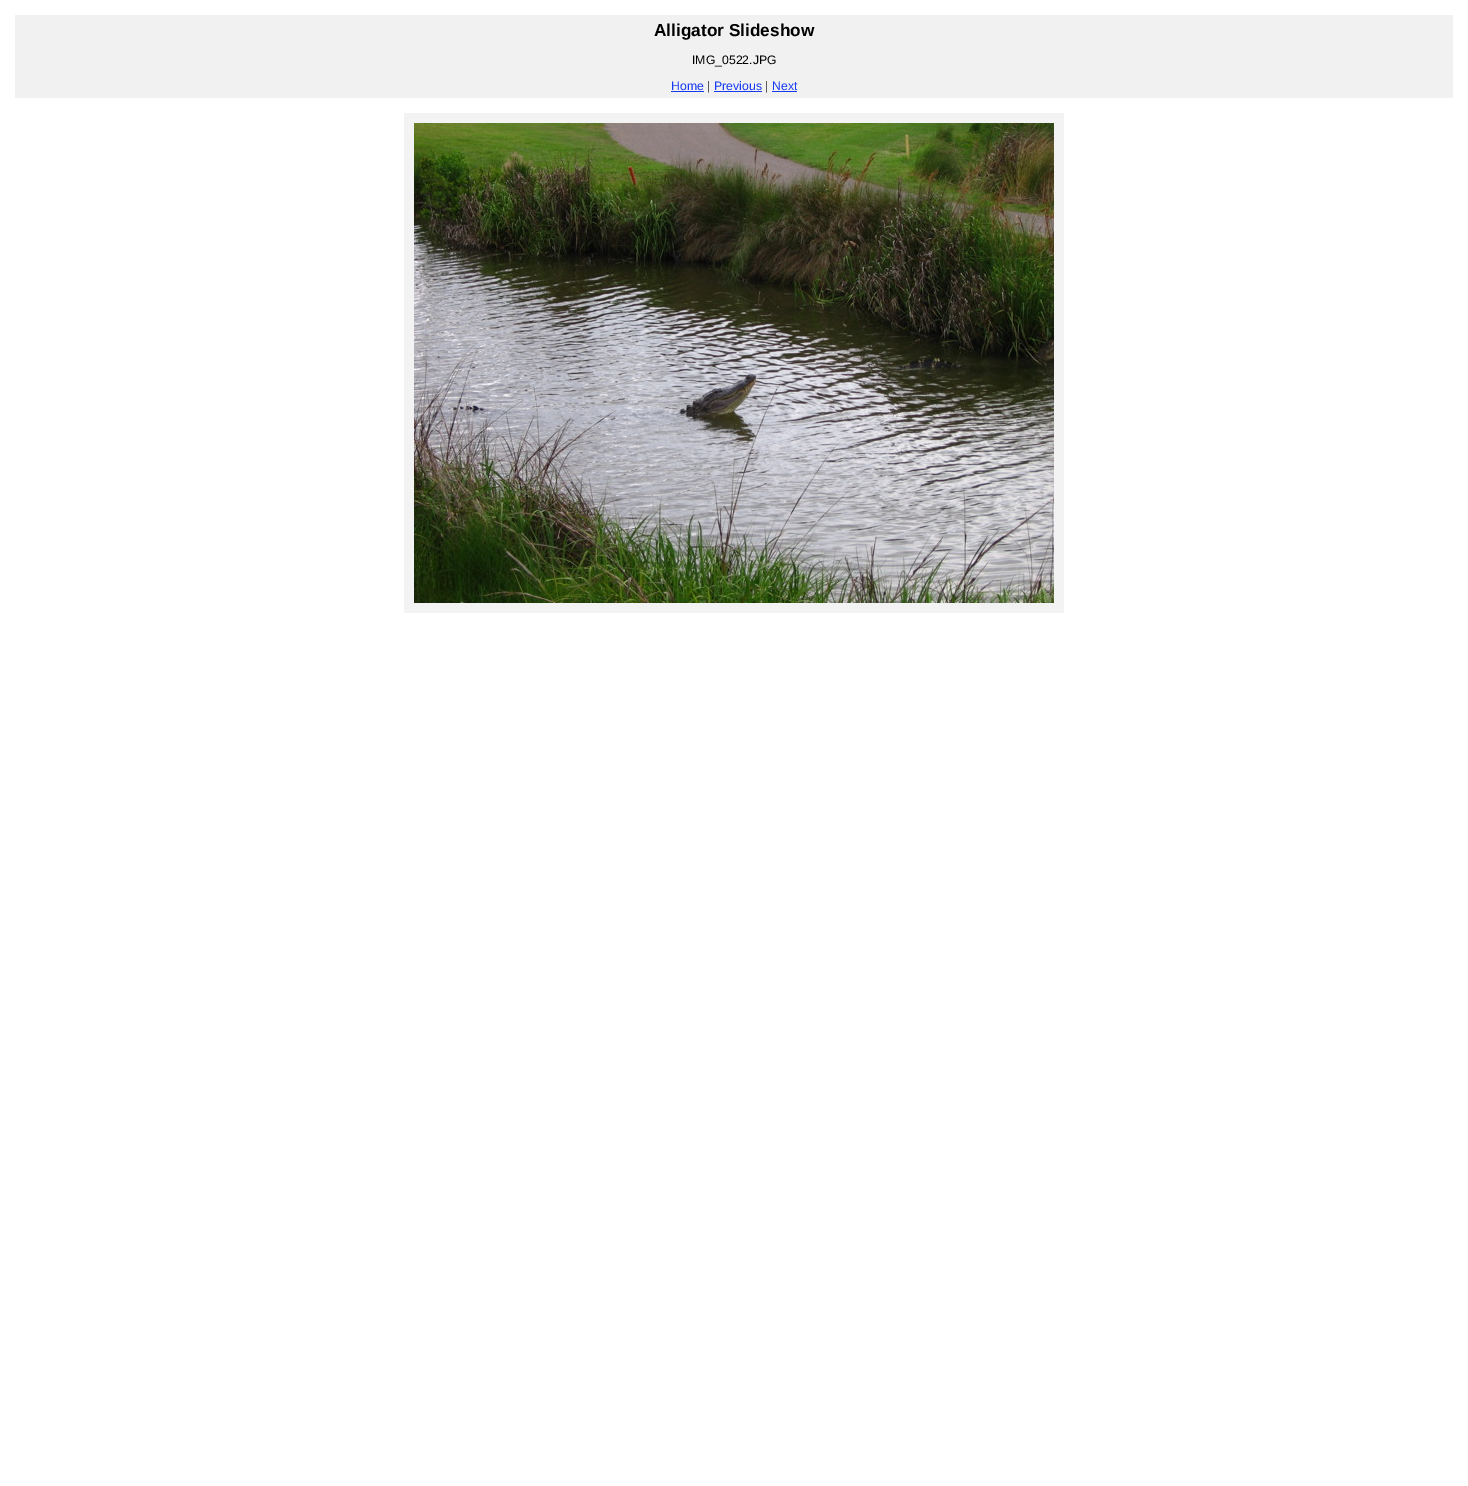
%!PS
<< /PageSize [1468 1486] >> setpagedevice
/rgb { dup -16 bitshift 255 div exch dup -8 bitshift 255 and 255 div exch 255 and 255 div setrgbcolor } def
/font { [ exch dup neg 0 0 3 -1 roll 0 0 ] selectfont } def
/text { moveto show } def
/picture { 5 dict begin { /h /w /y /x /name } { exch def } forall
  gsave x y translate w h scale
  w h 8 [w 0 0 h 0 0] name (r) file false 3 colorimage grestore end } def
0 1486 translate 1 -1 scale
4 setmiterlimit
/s1 { /LiberationSans-Bold 17.25 font 16#000000 rgb } def
/s2 { /LiberationSans-Regular 12.25 font 16#000000 rgb } def
/s3 { /LiberationSans-Regular 12.25 font 16#163AF1 rgb } def
/s4 { /LiberationSans-Regular 12.25 font 16#5B5B5B rgb } def
16#FFFFFF rgb
0 0 1468 1486 rectfill
16#F1F1F1 rgb
15 15 1438 83 rectfill
s1
(Alligator Slideshow) 654 36 text
s2
(IMG_0522.JPG) 692 64 text
s3
(Home) 671 90 text
671 91 33 1 rectfill
s4
(|) 707 90 text
s3
(Previous) 714 90 text
714 91 48 1 rectfill
s4
(|) 765 90 text
s3
(Next) 772 90 text
772 91 25 1 rectfill
16#F3F3F3 rgb
404 113 660 500 rectfill
(pic1.raw) 414 123 640 480 picture
showpage
